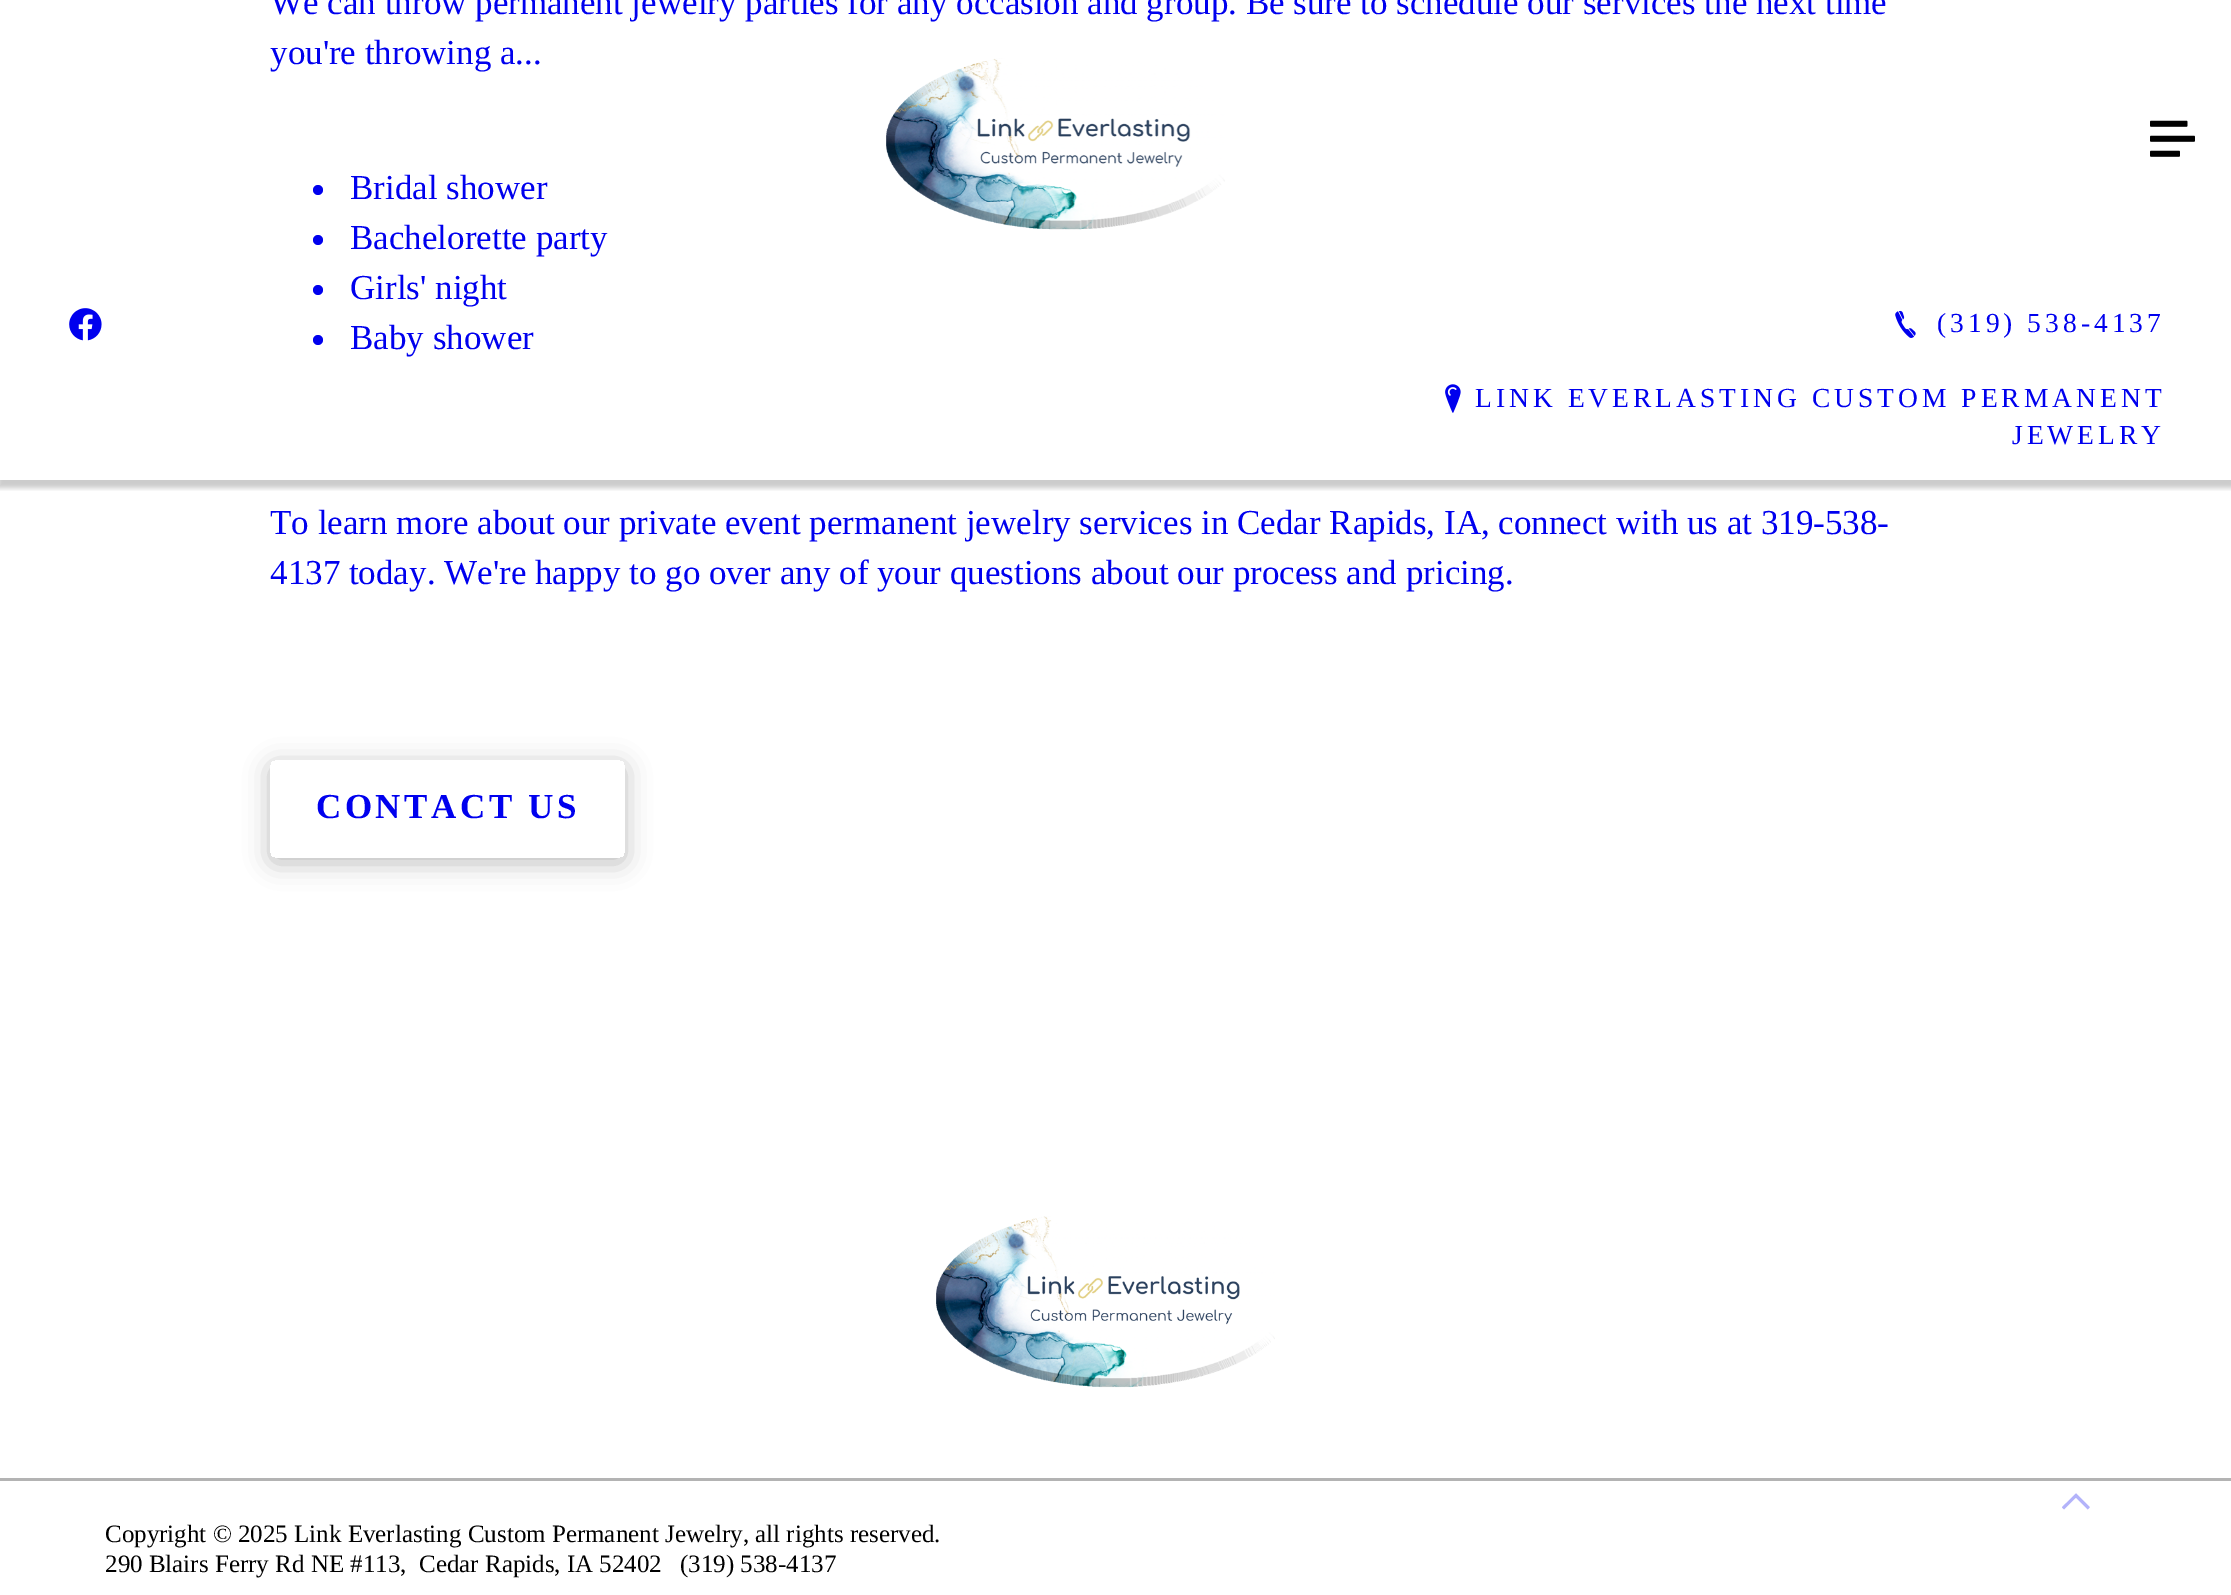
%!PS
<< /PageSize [2231 1595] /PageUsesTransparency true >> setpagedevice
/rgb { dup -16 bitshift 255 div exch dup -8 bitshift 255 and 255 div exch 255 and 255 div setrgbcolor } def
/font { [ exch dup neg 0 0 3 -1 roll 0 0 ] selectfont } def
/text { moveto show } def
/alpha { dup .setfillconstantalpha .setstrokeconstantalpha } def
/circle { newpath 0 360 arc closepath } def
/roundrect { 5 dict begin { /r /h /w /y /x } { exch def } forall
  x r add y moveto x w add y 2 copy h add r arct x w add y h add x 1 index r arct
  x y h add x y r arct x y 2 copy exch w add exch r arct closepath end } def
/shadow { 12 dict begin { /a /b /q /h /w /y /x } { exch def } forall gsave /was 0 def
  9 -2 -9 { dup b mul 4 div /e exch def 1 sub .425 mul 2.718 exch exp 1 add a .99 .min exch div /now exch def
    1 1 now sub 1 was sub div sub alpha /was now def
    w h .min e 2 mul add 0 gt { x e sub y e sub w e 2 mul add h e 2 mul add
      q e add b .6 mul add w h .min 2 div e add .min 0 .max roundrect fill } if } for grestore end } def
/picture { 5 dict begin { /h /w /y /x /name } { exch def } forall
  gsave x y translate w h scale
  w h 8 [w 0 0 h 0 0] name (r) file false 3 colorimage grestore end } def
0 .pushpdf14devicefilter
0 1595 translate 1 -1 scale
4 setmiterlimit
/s1 { /LiberationSerif-Regular 35 font 16#0000EE rgb } def
/s2 { /LiberationSerif-Regular 25 font 16#000000 rgb } def
/s3 { /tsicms-Regular 36 font 16#B3B3FA rgb } def
16#FFFFFF rgb
0 0 2231 1595 rectfill
s1
(We can throw permanent jewelry parties for any occasion and group. Be sure to schedule our services the next time) 270 14 text
(you're throwing a...) 270 64 text
318 190 5 circle fill
(Bridal shower) 350 199 text
318 240 5 circle fill
(Bachelorette party) 350 249 text
318 290 5 circle fill
(Girls' night) 350 299 text
318 340 5 circle fill
(Baby shower) 350 349 text
(To learn more about our private event permanent jewelry services in Cedar Rapids, IA, connect with us at 319-538-) 270 534 text
(4137 today. We're happy to go over any of your questions about our process and pricing.) 270 584 text
gsave
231 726 moveto 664 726 lineto 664 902 lineto 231 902 lineto closepath 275 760 moveto 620 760 lineto 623 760 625 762 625 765 curveto 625 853 lineto 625 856 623 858 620 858 curveto 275 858 lineto 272 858 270 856 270 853 curveto 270 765 lineto 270 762 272 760 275 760 curveto closepath eoclip newpath
16#000000 rgb
270 765 355 98 5 12.5 0.25 shadow
grestore
/LiberationSerif-Bold 35 font
316 818 moveto 3.5 0 (CONTACT US) ashow
(pic1.raw) 886 58 339 172 picture
(pic2.raw) 2150 120 45 37 picture
gsave
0 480 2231 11 rectclip
16#000000 rgb
-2 283 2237 205 0 2.5 0.2 shadow
grestore
(pic3.raw) 69 308 33 33 picture
(pic4.raw) 1895 310 21 28 picture
/LiberationSerif-Regular 27.5 font
1937 332 moveto 4 0 (\(319\) 538-4137) ashow
(pic5.raw) 1445 384 16 29 picture
1475 407 moveto 4 0 (LINK EVERLASTING CUSTOM PERMANENT) ashow
2012 444 moveto 4 0 (JEWELRY) ashow
(pic6.raw) 936 1216 339 172 picture
16#B3B3B3 rgb
0 1478 2231 3 rectfill
s2
(Copyright © 2025 Link Everlasting Custom Permanent Jewelry, all rights reserved.) 105 1542 text
(290 Blairs Ferry Rd NE #113,) 105 1572 text
(Cedar Rapids, IA 52402) 419 1572 text
(\(319\) 538-4137) 680 1572 text
s3
(+) 2062 1516 text
.poppdf14devicefilter showpage
